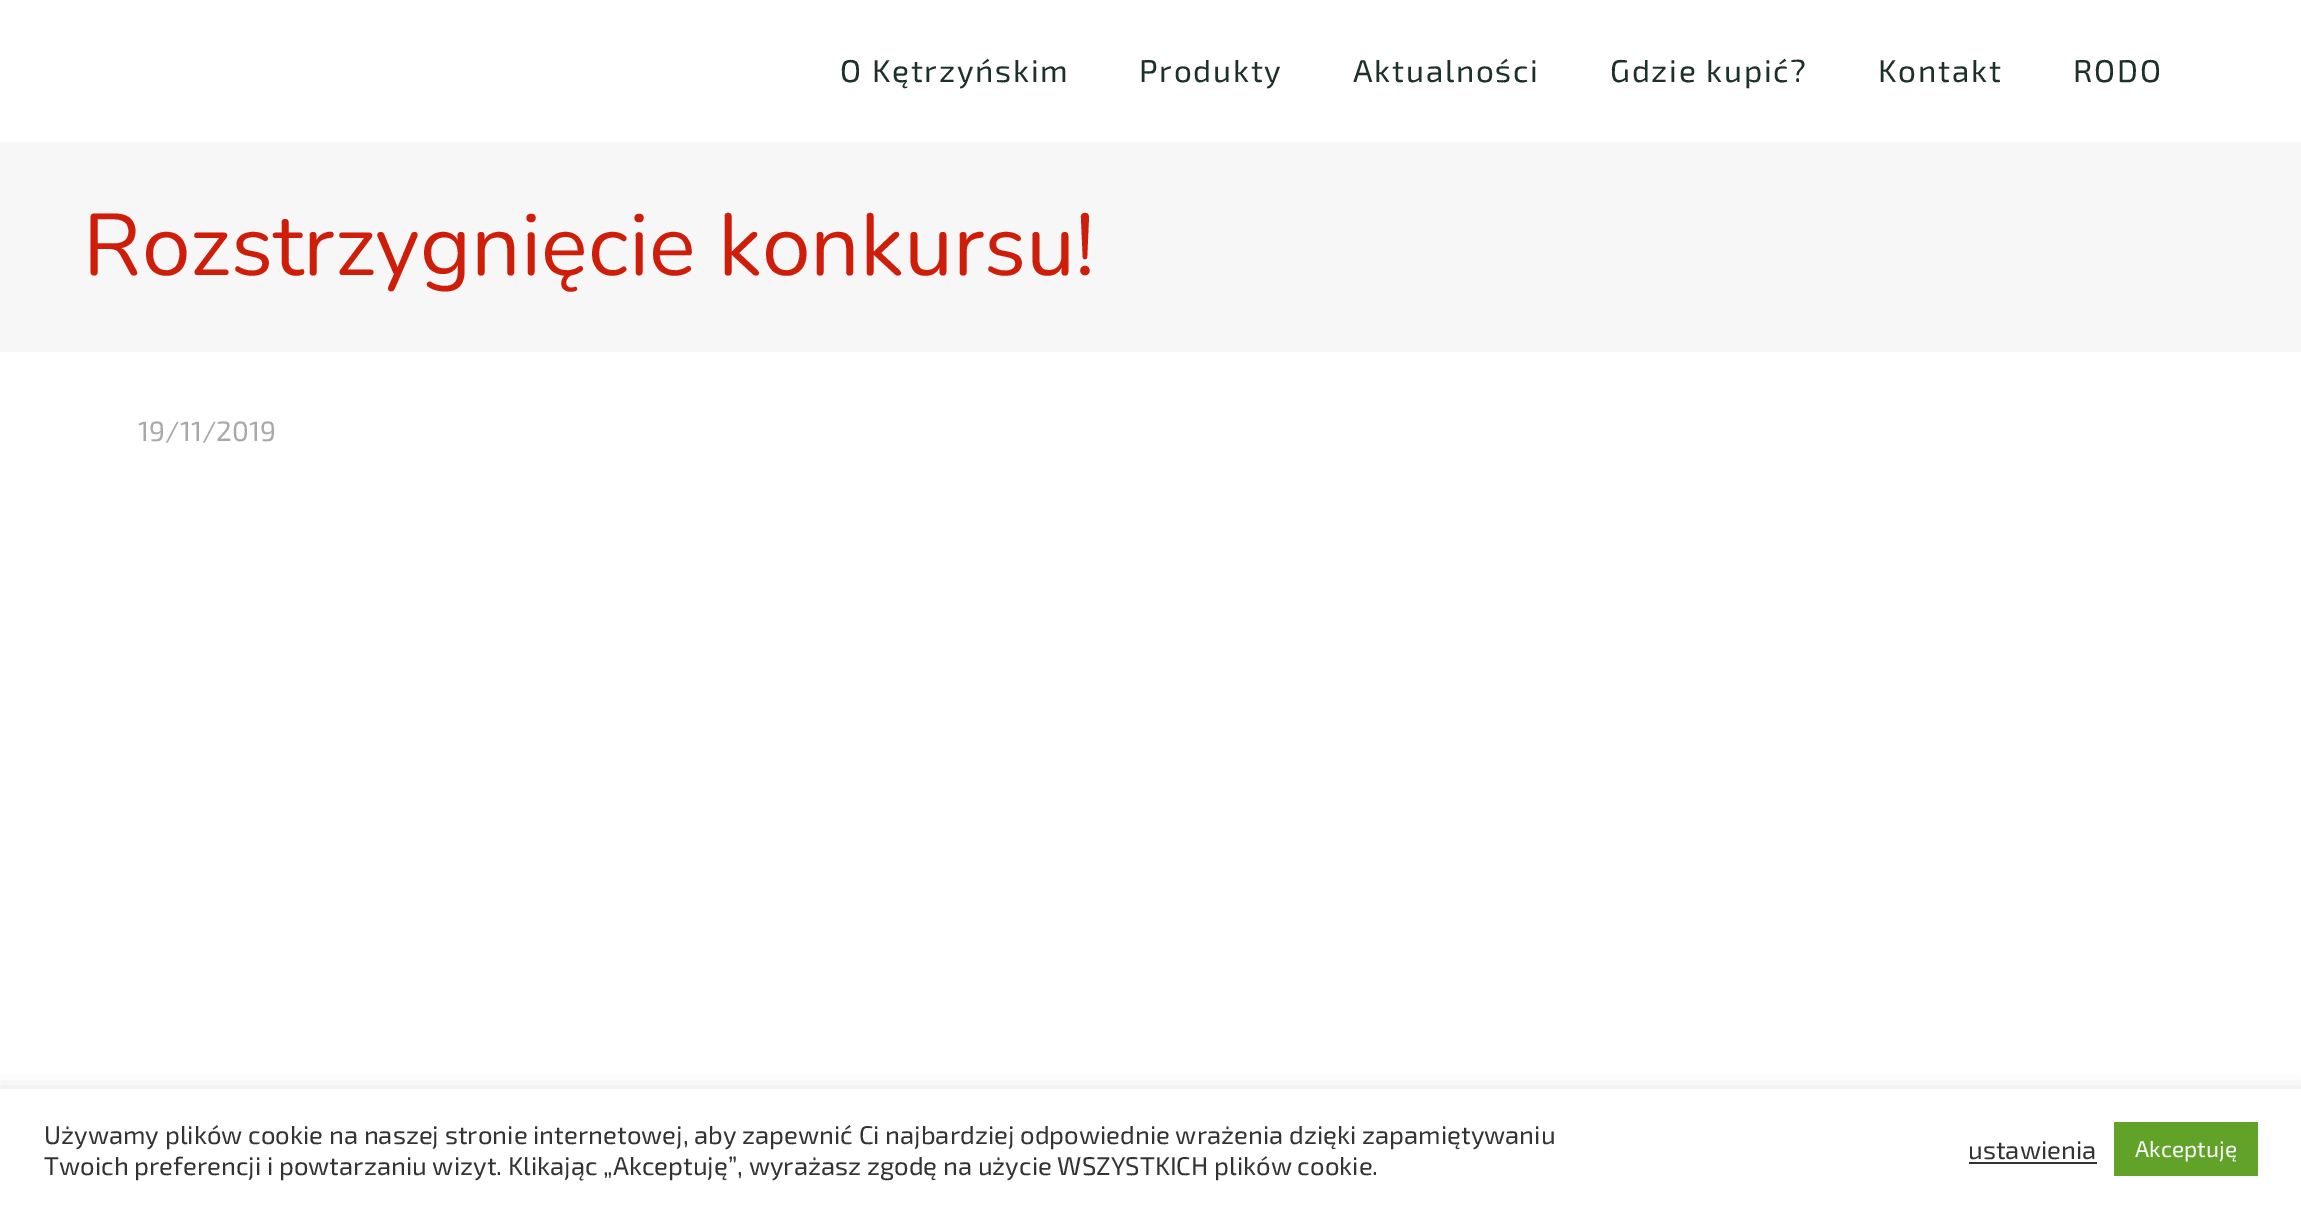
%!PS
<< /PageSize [2301 1208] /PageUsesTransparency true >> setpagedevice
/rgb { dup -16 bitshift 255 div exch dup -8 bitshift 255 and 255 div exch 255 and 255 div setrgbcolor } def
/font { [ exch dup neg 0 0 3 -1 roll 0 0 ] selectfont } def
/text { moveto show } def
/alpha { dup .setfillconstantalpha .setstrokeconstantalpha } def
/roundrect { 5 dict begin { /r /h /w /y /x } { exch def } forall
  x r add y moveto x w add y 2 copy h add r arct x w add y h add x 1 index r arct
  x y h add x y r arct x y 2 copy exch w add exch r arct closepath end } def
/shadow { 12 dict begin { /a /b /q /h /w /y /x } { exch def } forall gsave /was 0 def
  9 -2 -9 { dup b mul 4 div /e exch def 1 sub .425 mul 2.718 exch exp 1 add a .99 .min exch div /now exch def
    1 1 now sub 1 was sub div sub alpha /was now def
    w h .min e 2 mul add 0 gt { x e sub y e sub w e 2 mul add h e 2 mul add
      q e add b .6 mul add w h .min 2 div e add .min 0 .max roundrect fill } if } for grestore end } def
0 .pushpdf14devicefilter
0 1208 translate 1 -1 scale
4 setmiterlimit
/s1 { /Nunito-Regular 87.5 font 16#CE1D09 rgb } def
/s2 { /Exo2-Regular 28 font 16#A8A8A8 rgb } def
/s3 { /Exo2-Regular 25.67 font 16#333333 rgb } def
/s4 { /Exo2-Regular 22.75 font 16#FFFFFF rgb } def
16#FFFFFF rgb
0 0 2301 1208 rectfill
/Exo2-Regular 31.5 font
16#1E302B rgb
840 82 moveto 1.75 0 (O Kętrzyńskim) ashow
1139 82 moveto 1.75 0 (Produkty) ashow
1353 82 moveto 1.75 0 (Aktualności) ashow
1610 82 moveto 1.75 0 (Gdzie kupić?) ashow
1878 82 moveto 1.75 0 (Kontakt) ashow
2073 82 moveto 1.75 0 (RODO) ashow
16#F7F7F7 rgb
0 142 2301 210 rectfill
s1
(Rozstrzygnięcie konkursu!) 83 275 text
s2
(19/11/2019) 138 441 text
gsave
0 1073 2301 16 rectclip
16#ACABAB rgb
0 1087 2301 121 0 9 0.3 shadow
grestore
s3
(Używamy plików cookie na naszej stronie internetowej, aby zapewnić Ci najbardziej odpowiednie wrażenia dzięki zapamiętywaniu) 44 1144 text
(Twoich preferencji i powtarzaniu wizyt. Klikając „Akceptuję”, wyrażasz zgodę na użycie WSZYSTKICH plików cookie.) 44 1175 text
(ustawienia) 1968 1159 text
1969 1162 128 2 rectfill
16#61A229 rgb
2114 1122 144 54 rectfill
s4
(Akceptuję) 2135 1157 text
.poppdf14devicefilter showpage
